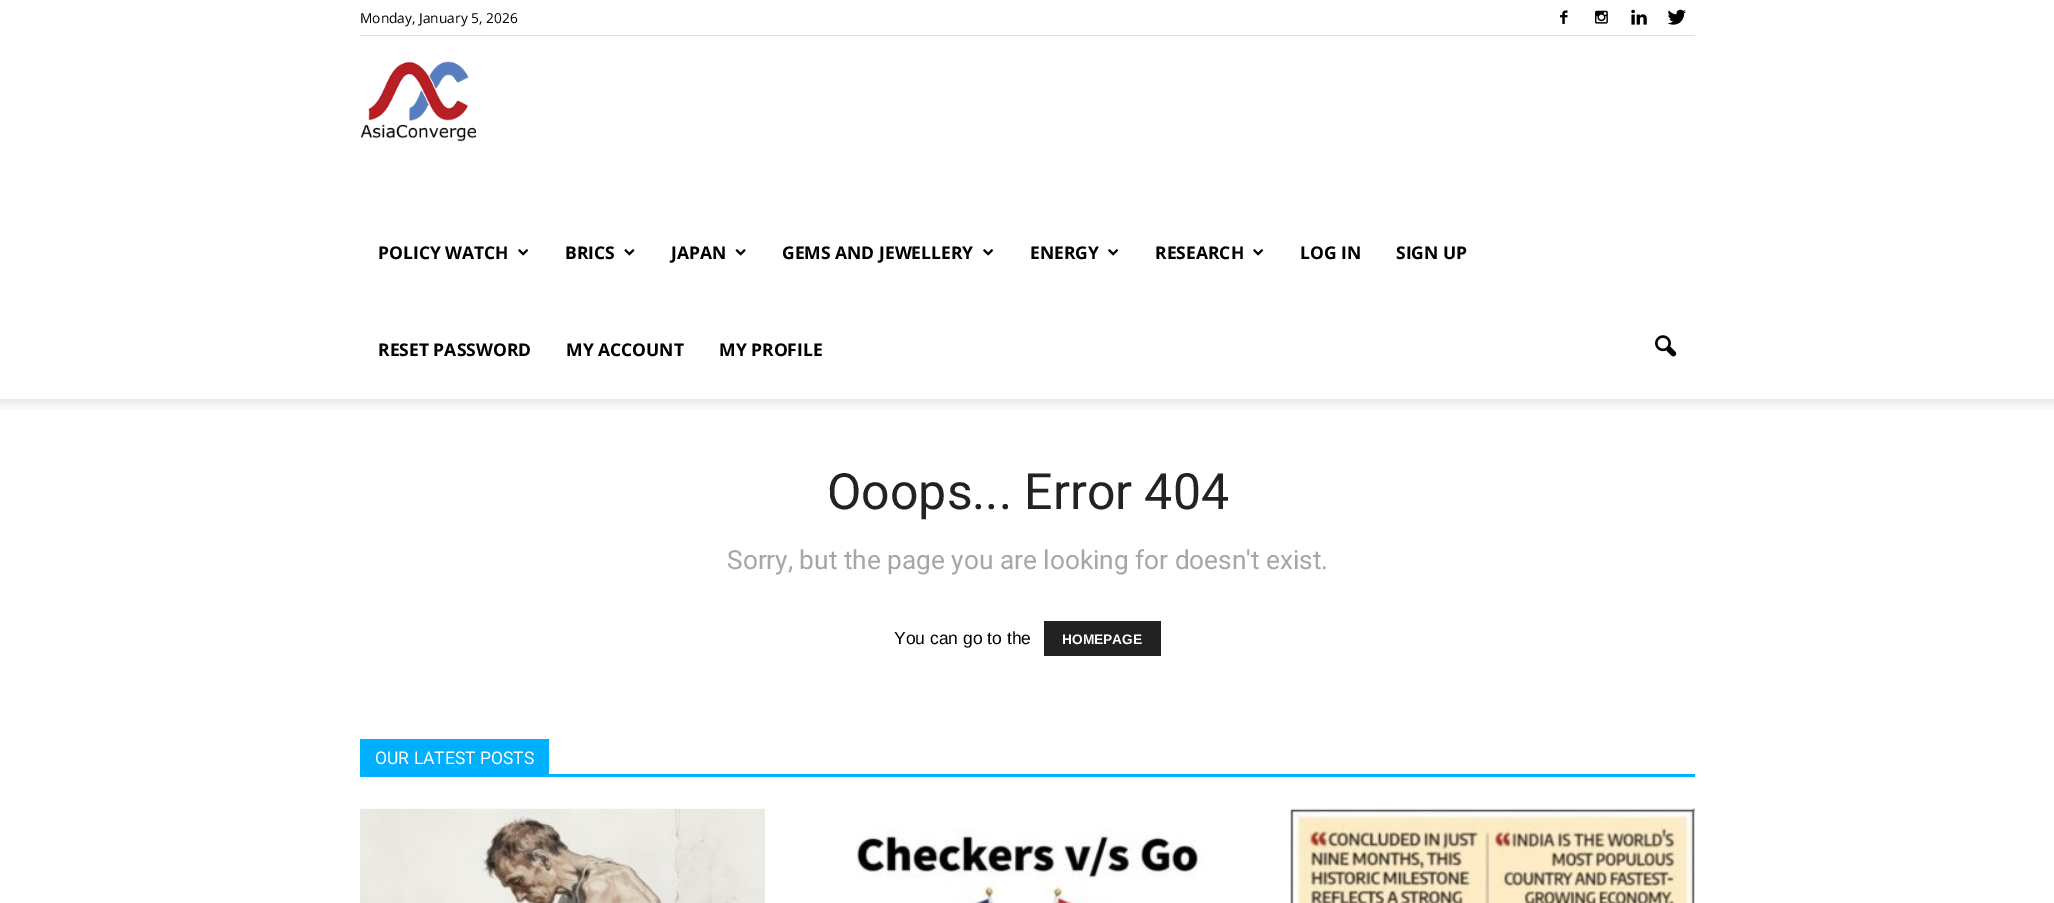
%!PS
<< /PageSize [2054 903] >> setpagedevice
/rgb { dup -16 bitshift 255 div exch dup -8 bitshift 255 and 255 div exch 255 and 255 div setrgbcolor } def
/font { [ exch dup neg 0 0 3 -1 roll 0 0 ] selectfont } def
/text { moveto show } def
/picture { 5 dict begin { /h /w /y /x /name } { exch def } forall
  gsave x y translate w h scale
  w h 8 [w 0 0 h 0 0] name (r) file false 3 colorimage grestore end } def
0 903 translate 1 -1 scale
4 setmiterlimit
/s1 { /OpenSans-Regular 13.75 font 16#000000 rgb } def
/s2 { /OpenSans-Bold 17.5 font 16#000000 rgb } def
/s3 { /Roboto-Regular 50 font 16#222222 rgb } def
/s4 { /Roboto-Regular 26.25 font 16#A6A6A6 rgb } def
/s5 { /LiberationSans-Regular 17.5 font 16#000000 rgb } def
/s6 { /LiberationSans-Bold 13.75 font 16#FFFFFF rgb } def
/s7 { /Roboto-Regular 17.5 font 16#FFFFFF rgb } def
16#FFFFFF rgb
0 0 2054 903 rectfill
16#E0E0E0 rgb
360 35 1335 1 rectfill
s1
(Monday, January 5, 2026) 360 23 text
(pic1.raw) 1560 10 8 14 picture
(pic2.raw) 1595 10 13 14 picture
(pic3.raw) 1631 9 16 16 picture
(pic4.raw) 1667 9 19 16 picture
(pic5.raw) 360 61 116 81 picture
s2
(POLICY WATCH) 378 259 text
(pic6.raw) 518 249 11 7 picture
(BRICS) 565 259 text
(pic7.raw) 624 249 11 7 picture
(JAPAN) 671 259 text
(pic8.raw) 735 249 11 7 picture
(GEMS AND JEWELLERY) 782 259 text
(pic6.raw) 983 249 11 7 picture
(ENERGY) 1030 259 text
(pic6.raw) 1108 249 11 7 picture
(RESEARCH) 1155 259 text
(pic6.raw) 1253 249 11 7 picture
(LOG IN) 1300 259 text
(SIGN UP) 1396 259 text
(RESET PASSWORD) 378 356 text
(MY ACCOUNT) 566 356 text
(MY PROFILE) 719 356 text
(pic9.raw) 1655 335 22 22 picture
(pic10.raw) 0 399 2054 10 picture
s3
(Ooops... Error 404) 827 509 text
s4
(Sorry, but the page you are looking for doesn't exist.) 727 569 text
s5
(You can go to the) 894 644 text
16#222222 rgb
1044 621 117 35 rectfill
s6
(HOMEPAGE) 1062 644 text
16#00B0FF rgb
360 774 1335 3 rectfill
360 739 189 35 rectfill
s7
(OUR LATEST POSTS) 375 764 text
(pic11.raw) 360 808 405 95 picture
(pic12.raw) 855 829 349 74 picture
(pic13.raw) 1290 808 405 95 picture
showpage
